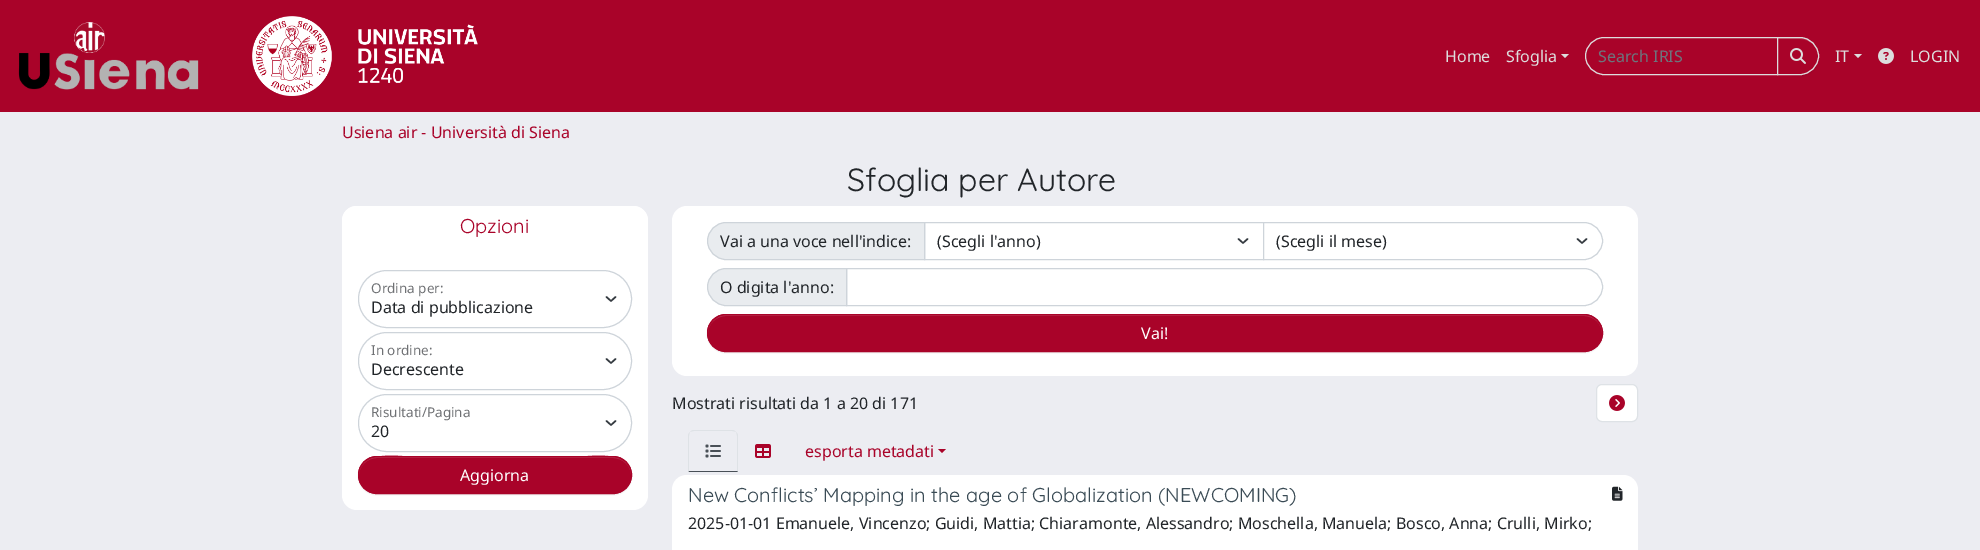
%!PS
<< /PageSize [1980 550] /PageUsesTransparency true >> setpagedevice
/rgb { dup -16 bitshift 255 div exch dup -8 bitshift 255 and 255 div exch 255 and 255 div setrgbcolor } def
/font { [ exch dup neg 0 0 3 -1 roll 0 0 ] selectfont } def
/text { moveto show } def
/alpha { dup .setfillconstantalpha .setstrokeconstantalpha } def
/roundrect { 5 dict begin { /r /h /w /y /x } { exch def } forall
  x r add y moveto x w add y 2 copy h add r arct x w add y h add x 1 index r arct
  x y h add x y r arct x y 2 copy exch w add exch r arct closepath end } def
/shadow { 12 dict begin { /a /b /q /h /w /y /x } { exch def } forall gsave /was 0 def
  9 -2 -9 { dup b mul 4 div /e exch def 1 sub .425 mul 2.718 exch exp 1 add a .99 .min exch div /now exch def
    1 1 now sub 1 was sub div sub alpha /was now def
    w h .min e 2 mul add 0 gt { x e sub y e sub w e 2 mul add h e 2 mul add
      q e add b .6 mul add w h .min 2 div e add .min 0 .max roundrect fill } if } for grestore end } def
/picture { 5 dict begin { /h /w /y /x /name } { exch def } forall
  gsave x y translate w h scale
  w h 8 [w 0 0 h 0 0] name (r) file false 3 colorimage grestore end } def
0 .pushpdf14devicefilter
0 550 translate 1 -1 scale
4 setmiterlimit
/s1 { /NotoSans-Regular 16 font 16#DDDDDD rgb } def
/s2 { /NotoSans-Regular 16 font 16#6C757D rgb } def
/s3 { /NotoSans-Regular 16 font 16#A90329 rgb } def
/s4 { /Quicksand-Regular 32 font 16#212529 rgb } def
/s5 { /Quicksand-Regular 20 font 16#A90329 rgb } def
/s6 { /NotoSans-Regular 13.5 font 16#6F7174 rgb } def
/s7 { /NotoSans-Regular 16 font 16#212529 rgb } def
/s8 { /NotoSans-Regular 16 font 16#FFFFFF rgb } def
/s9 { /Quicksand-Regular 20 font 16#3A4B55 rgb } def
16#ECEDF2 rgb
0 0 1980 550 rectfill
16#A90329 rgb
0 0 1980 112 rectfill
(pic1.raw) 18 22 181 68 picture
(pic2.raw) 252 16 226 80 picture
s1
(Home) 1445 62 text
(Sfoglia) 1506 62 text
1561 54 moveto 1569 54 lineto 1565 58 lineto closepath fill
1604 37.5 moveto 1777.5 37.5 lineto 1777.5 74.5 lineto 1604 74.5 lineto 1594 74.5 1585.5 66 1585.5 56 curveto 1585.5 46 1594 37.5 1604 37.5 curveto closepath stroke
s2
(Search IRIS) 1598 62 text
16#000000 rgb
1777 38 42 38 19 0.5 0.07 shadow
16#A90329 rgb
1777 37 moveto 1800 37 lineto 1810.5 37 1819 45.5 1819 56 curveto 1819 66.5 1810.5 75 1800 75 curveto 1777 75 lineto closepath fill
16#B62949 rgb
1778 39 moveto 1800 39 lineto 1810 39 1818 47 1818 56 curveto 1818 48 1812 40 1804 38 curveto 1778 38 lineto closepath fill
16#DDDDDD rgb
1777.5 37.5 moveto 1800 37.5 lineto 1810 37.5 1818.5 46 1818.5 56 curveto 1818.5 66 1810 74.5 1800 74.5 curveto 1777.5 74.5 lineto closepath stroke
(pic3.raw) 1790 48 16 16 picture
(IT) 1835 62 text
1854 54 moveto 1862 54 lineto 1858 58 lineto closepath fill
(pic4.raw) 1878 48 16 16 picture
(LOGIN) 1910 62 text
s3
(Usiena air - Università di Siena) 342 138 text
s4
(Sfoglia per Autore) 847 191 text
16#FFFFFF rgb
342 206 306 304 15 roundrect fill
357 206 moveto 633 206 lineto 641.5 206 648 212.5 648 221 curveto 648 254 lineto 342 254 lineto 342 221 lineto 342 212.5 348.5 206 357 206 curveto closepath fill
s5
(Opzioni) 460 233 text
16#343A40 rgb
1.5 setlinewidth
1 setlinecap
1 setlinejoin
606.5 297 moveto 611 301 lineto 615.5 297 lineto stroke
16#CED4DA rgb
1 setlinewidth
0 setlinecap
0 setlinejoin
358.5 270.5 273 57 28.5 roundrect stroke
s6
(Ordina per:) 371 293 text
s7
(Data di pubblicazione) 371 313 text
16#343A40 rgb
1.5 setlinewidth
1 setlinecap
1 setlinejoin
606.5 359 moveto 611 363 lineto 615.5 359 lineto stroke
16#CED4DA rgb
1 setlinewidth
0 setlinecap
0 setlinejoin
358.5 332.5 273 57 28.5 roundrect stroke
s6
(In ordine:) 371 355 text
s7
(Decrescente) 371 375 text
16#343A40 rgb
1.5 setlinewidth
1 setlinecap
1 setlinejoin
606.5 421 moveto 611 425 lineto 615.5 421 lineto stroke
16#CED4DA rgb
1 setlinewidth
0 setlinecap
0 setlinejoin
358.5 394.5 273 57 28.5 roundrect stroke
s6
(Risultati/Pagina) 371 417 text
s7
(20) 371 437 text
16#000000 rgb
358 457 274 38 19 0.5 0.07 shadow
16#A90329 rgb
358 456 274 38 19 roundrect fill
16#B62949 rgb
377 458 moveto 613 458 lineto 623 458 631 466 631 475 curveto 632 448 585 457 574 457 curveto 416 457 lineto 405 457 358 448 359 475 curveto 359 466 367 458 377 458 curveto closepath fill
16#A90329 rgb
358.5 456.5 273 37 18.5 roundrect stroke
s8
(Aggiorna) 460 481 text
672 206 966 170 15 roundrect fill
16#E9ECEF rgb
726 222.5 moveto 924.5 222.5 lineto 924.5 259.5 lineto 726 259.5 lineto 716 259.5 707.5 251 707.5 241 curveto 707.5 231 716 222.5 726 222.5 curveto closepath gsave fill grestore
16#CED4DA rgb
stroke
s7
(Vai a una voce nell'indice:) 720 247 text
16#343A40 rgb
1.5 setlinewidth
1 setlinecap
1 setlinejoin
1238.5 239 moveto 1243 243 lineto 1247.5 239 lineto stroke
16#CED4DA rgb
1 setlinewidth
0 setlinecap
0 setlinejoin
924.5 222.5 339 37 rectstroke
s7
(\(Scegli l'anno\)) 937 247 text
16#FFFFFF rgb
1263 222 moveto 1584 222 lineto 1594.5 222 1603 230.5 1603 241 curveto 1603 251.5 1594.5 260 1584 260 curveto 1263 260 lineto closepath fill
16#343A40 rgb
1.5 setlinewidth
1 setlinecap
1 setlinejoin
1577.5 239 moveto 1582 243 lineto 1586.5 239 lineto stroke
16#CED4DA rgb
1 setlinewidth
0 setlinecap
0 setlinejoin
1263.5 222.5 moveto 1584 222.5 lineto 1594 222.5 1602.5 231 1602.5 241 curveto 1602.5 251 1594 259.5 1584 259.5 curveto 1263.5 259.5 lineto closepath stroke
s7
(\(Scegli il mese\)) 1276 247 text
16#E9ECEF rgb
726 268.5 moveto 846.5 268.5 lineto 846.5 305.5 lineto 726 305.5 lineto 716 305.5 707.5 297 707.5 287 curveto 707.5 277 716 268.5 726 268.5 curveto closepath gsave fill grestore
16#CED4DA rgb
stroke
s7
(O digita l'anno:) 720 293 text
16#CED4DA rgb
846.5 268.5 moveto 1584 268.5 lineto 1594 268.5 1602.5 277 1602.5 287 curveto 1602.5 297 1594 305.5 1584 305.5 curveto 846.5 305.5 lineto closepath stroke
16#000000 rgb
707 315 896 38 19 0.5 0.07 shadow
16#A90329 rgb
707 314 896 38 19 roundrect fill
16#B62949 rgb
726 316 moveto 1584 316 lineto 1594 316 1602 324 1602 333 curveto 1602 323 1594 315 1584 315 curveto 726 315 lineto 716 315 708 323 708 333 curveto 708 324 716 316 726 316 curveto closepath fill
16#A90329 rgb
707.5 314.5 895 37 18.5 roundrect stroke
s8
(Vai!) 1141 339 text
s7
(Mostrati risultati da 1 a 20 di 171) 672 409 text
16#FFFFFF rgb
1596.5 384.5 41 37 5.5 roundrect gsave fill grestore
16#DEE2E6 rgb
stroke
(pic5.raw) 1609 395 16 16 picture
694 430 moveto 692 430 691 431 690 432 curveto 691 432 692 431 694 431 curveto 732 431 lineto 734 431 735 432 736 432 curveto 735 431 734 430 732 430 curveto closepath 738 472 moveto 738 436 lineto 738 434 737 433 736 432 curveto 736 433 737 434 737 436 curveto 737 471 lineto closepath fill
16#495057 rgb
738 472 moveto 737 471 lineto 689 471 lineto 688 472 lineto closepath fill
16#DEE2E6 rgb
688 472 moveto 689 471 lineto 689 436 lineto 689 434 690 433 690 432 curveto 689 433 688 434 688 436 curveto closepath fill
(pic6.raw) 705 444 16 14 picture
(pic7.raw) 755 444 16 14 picture
s3
(esporta metadati) 805 457 text
938 449 moveto 946 449 lineto 942 453 lineto closepath fill
16#FFFFFF rgb
687 475 moveto 1623 475 lineto 1631.5 475 1638 481.5 1638 490 curveto 1638 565 lineto 672 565 lineto 672 490 lineto 672 481.5 678.5 475 687 475 curveto closepath fill
s9
(New Conflicts’ Mapping in the age of Globalization \(NEWCOMING\)) 688 502 text
(pic8.raw) 1612 486 11 15 picture
s7
(2025-01-01 Emanuele, Vincenzo; Guidi, Mattia; Chiaramonte, Alessandro; Moschella, Manuela; Bosco, Anna; Crulli, Mirko;) 688 529 text
.poppdf14devicefilter showpage
